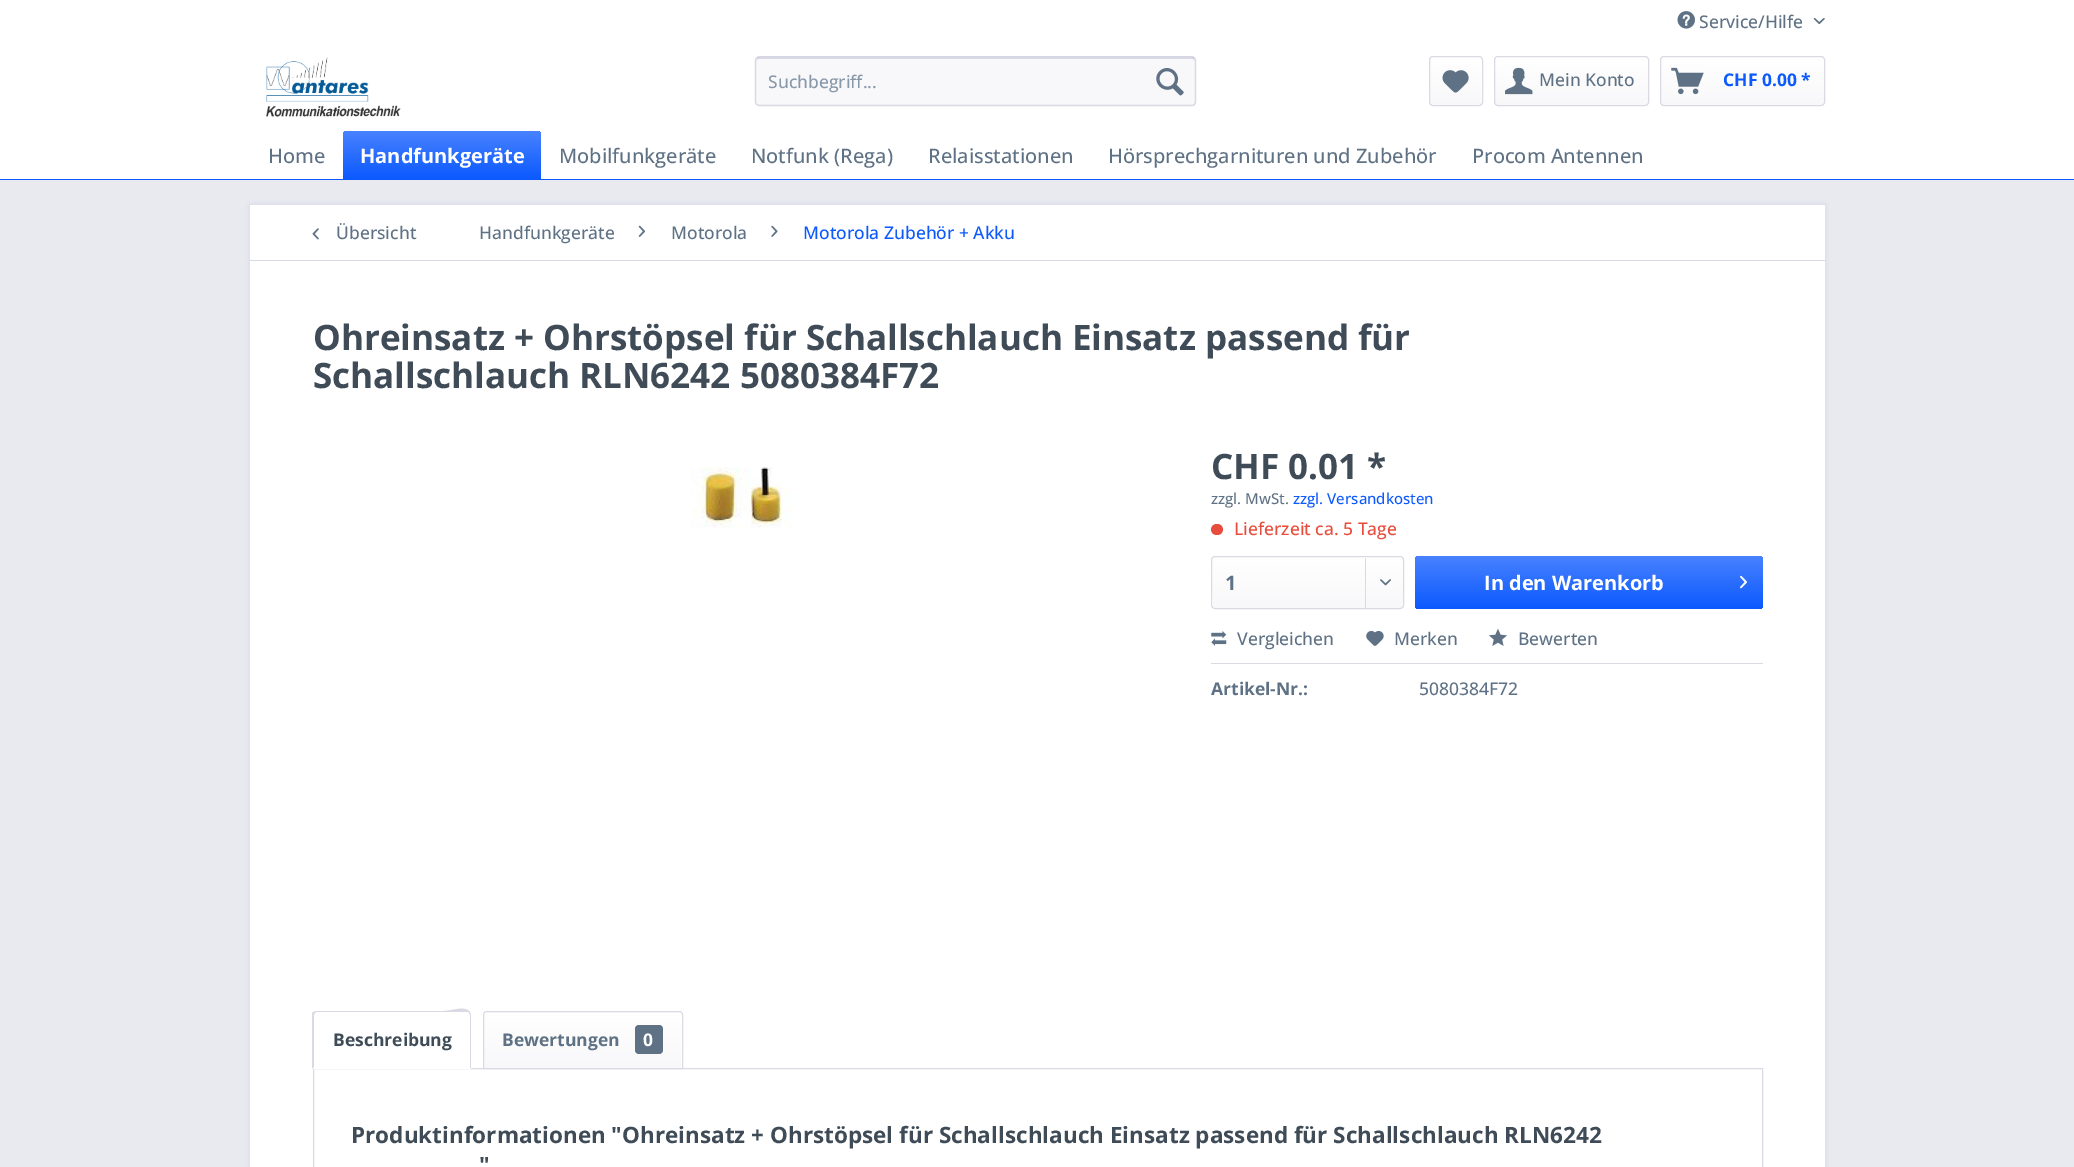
%!PS
<< /PageSize [2074 1167] /PageUsesTransparency true >> setpagedevice
/rgb { dup -16 bitshift 255 div exch dup -8 bitshift 255 and 255 div exch 255 and 255 div setrgbcolor } def
/font { [ exch dup neg 0 0 3 -1 roll 0 0 ] selectfont } def
/text { moveto show } def
/alpha { dup .setfillconstantalpha .setstrokeconstantalpha } def
/roundrect { 5 dict begin { /r /h /w /y /x } { exch def } forall
  x r add y moveto x w add y 2 copy h add r arct x w add y h add x 1 index r arct
  x y h add x y r arct x y 2 copy exch w add exch r arct closepath end } def
/shadow { 12 dict begin { /a /b /q /h /w /y /x } { exch def } forall gsave /was 0 def
  9 -2 -9 { dup b mul 4 div /e exch def 1 sub .425 mul 2.718 exch exp 1 add a .99 .min exch div /now exch def
    1 1 now sub 1 was sub div sub alpha /was now def
    w h .min e 2 mul add 0 gt { x e sub y e sub w e 2 mul add h e 2 mul add
      q e add b .6 mul add w h .min 2 div e add .min 0 .max roundrect fill } if } for grestore end } def
/picture { 5 dict begin { /h /w /y /x /name } { exch def } forall
  gsave x y translate w h scale
  w h 8 [w 0 0 h 0 0] name (r) file false 3 colorimage grestore end } def
0 .pushpdf14devicefilter
0 1167 translate 1 -1 scale
4 setmiterlimit
/s1 { /OpenSans-Medium 17.5 font 16#5F7285 rgb } def
/s2 { /OpenSans-Medium 17.5 font 16#8798A9 rgb } def
/s3 { /OpenSans-Bold 17.5 font 16#0C59FE rgb } def
/s4 { /OpenSans-Medium 20 font 16#5F7285 rgb } def
/s5 { /OpenSans-Bold 20 font 16#FFFFFF rgb } def
/s6 { /OpenSans-Medium 17.5 font 16#0C59FE rgb } def
/s7 { /OpenSans-Bold 35 font 16#3F4C58 rgb } def
/s8 { /OpenSans-Medium 15 font 16#5F7285 rgb } def
/s9 { /OpenSans-Medium 15 font 16#0C59FE rgb } def
/s10 { /OpenSans-Medium 17.5 font 16#E74C3C rgb } def
/s11 { /OpenSans-Bold 20 font 16#5F7285 rgb } def
/s12 { /OpenSans-Bold 17.5 font 16#5F7285 rgb } def
/s13 { /OpenSans-Bold 17.5 font 16#3F4C58 rgb } def
/s14 { /OpenSans-Bold 17.5 font 16#FFFFFF rgb } def
/s15 { /OpenSans-Bold 22.5 font 16#3F4C58 rgb } def
16#E9E9F0 rgb
0 0 2074 1167 rectfill
16#FFFFFF rgb
0 0 2074 179 rectfill
(pic1.raw) 1677 11 18 18 picture
s1
(Service/Hilfe) 1699 28 text
(pic2.raw) 1813 17 12 8 picture
(pic3.raw) 266 57 135 60 picture
16#F8F8FA rgb
755 56 441 50 4 roundrect fill
16#DADAE5 rgb
759 59 moveto 1192 59 lineto 1194 59 1195 60 1195 61 curveto 1195 59 1194 58 1192 58 curveto 758 58 lineto 757 59 lineto 756 61 lineto 756 60 757 59 759 59 curveto closepath fill
16#CBCBDB rgb
1.2 setlinewidth
756.5 58 moveto 759 57 lineto 1192.5 57 lineto 1194.5 58 lineto stroke
16#DADAE5 rgb
1194.5 58 moveto 1195.5 60 lineto 1195.5 102.5 lineto 1194.5 104.5 lineto 1192.5 105.5 lineto 759 105.5 lineto 756.5 104.5 lineto 755.5 102.5 lineto 755.5 60 lineto 756.5 58 lineto stroke
s2
(Suchbegriff...) 768 88 text
(pic4.raw) 1156 68 28 28 picture
gsave 1430 58 51 47 2.5 roundrect clip newpath
<< /ShadingType 2 /ColorSpace /DeviceRGB /Coords [1456 58 1456 105] /Extend [true true] /Function << /FunctionType 2 /Domain [0 1] /C0 [1 1 1] /C1 [0.973 0.973 0.98] /N 1 >> >> shfill grestore
16#DADAE5 rgb
1 setlinewidth
1429.5 56.5 53 49 3.5 roundrect stroke
(pic5.raw) 1442 70 27 23 picture
gsave 1495 58 153 47 2.5 roundrect clip newpath
<< /ShadingType 2 /ColorSpace /DeviceRGB /Coords [1571 57 1571 105] /Extend [true true] /Function << /FunctionType 2 /Domain [0 1] /C0 [1 1 1] /C1 [0.973 0.973 0.98] /N 1 >> >> shfill grestore
1494.5 56.5 154 49 3.5 roundrect stroke
(pic6.raw) 1505 67 28 28 picture
s1
(Mein Konto) 1539 86 text
gsave 1661 58 163 47 2.5 roundrect clip newpath
<< /ShadingType 2 /ColorSpace /DeviceRGB /Coords [1743 57 1743 105] /Extend [true true] /Function << /FunctionType 2 /Domain [0 1] /C0 [1 1 1] /C1 [0.973 0.973 0.98] /N 1 >> >> shfill grestore
16#DADAE5 rgb
1660.5 56.5 164 49 3.5 roundrect stroke
(pic7.raw) 1671 67 33 28 picture
s3
(CHF 0.00 *) 1723 86 text
0 179 2074 1 rectfill
s4
(Home) 268 163 text
gsave 347 131 moveto 537 131 lineto 539 131 541 133 541 135 curveto 541 179 lineto 343 179 lineto 343 135 lineto 343 133 345 131 347 131 curveto closepath clip newpath
<< /ShadingType 2 /ColorSpace /DeviceRGB /Coords [442 131 442 179] /Extend [true true] /Function << /FunctionType 2 /Domain [0 1] /C0 [0.282 0.51 1] /C1 [0.047 0.349 0.996] /N 1 >> >> shfill grestore
s5
(Handfunkgeräte) 360 163 text
s4
(Mobilfunkgeräte) 559 163 text
(Notfunk \(Rega\)) 751 163 text
(Relaisstationen) 928 163 text
(Hörsprechgarnituren und Zubehör) 1108 163 text
(Procom Antennen) 1472 163 text
16#DADAE5 rgb
249 204 1577 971 0 2.5 1 shadow
16#FFFFFF rgb
250 205 1575 962 rectfill
16#DADAE5 rgb
250 260 1575 1 rectfill
(pic8.raw) 312 228 7 12 picture
s1
(Übersicht) 336 239 text
(Handfunkgeräte) 479 239 text
(pic9.raw) 638 225 7 12 picture
(Motorola) 671 239 text
(pic10.raw) 771 225 7 12 picture
s6
(Motorola Zubehör + Akku) 803 239 text
s7
(Ohreinsatz + Ohrstöpsel für Schallschlauch Einsatz passend für) 313 350 text
(Schallschlauch RLN6242 5080384F72) 313 388 text
(pic11.raw) 691 467 101 61 picture
(CHF 0.01 *) 1211 479 text
s8
(zzgl. MwSt.) 1211 504 text
s9
(zzgl. Versandkosten) 1293 504 text
16#E74C3C rgb
1211 524 12 11 5.5 roundrect fill
s10
(Lieferzeit ca. 5 Tage) 1234 535 text
gsave 1213 558 190 50 2.5 roundrect clip newpath
<< /ShadingType 2 /ColorSpace /DeviceRGB /Coords [1308 558 1308 608] /Extend [true true] /Function << /FunctionType 2 /Domain [0 1] /C0 [1 1 1] /C1 [0.973 0.973 0.98] /N 1 >> >> shfill grestore
16#DADAE5 rgb
1211.5 556.5 192 52 3.5 roundrect stroke
s11
(1) 1225 590 text
16#DADAE5 rgb
1365 558 1 50 rectfill
(pic12.raw) 1380 579 11 7 picture
gsave 1415 556 348 53 4 roundrect clip newpath
<< /ShadingType 2 /ColorSpace /DeviceRGB /Coords [1589 556 1589 609] /Extend [true true] /Function << /FunctionType 2 /Domain [0 1] /C0 [0.282 0.51 1] /C1 [0.047 0.349 0.996] /N 1 >> >> shfill grestore
s5
(In den Warenkorb) 1484 590 text
(pic13.raw) 1740 575 7 14 picture
16#DADAE5 rgb
1211 663 552 1 rectfill
(pic14.raw) 1211 631 16 15 picture
s1
(Vergleichen) 1237 645 text
(pic15.raw) 1366 630 18 16 picture
(Merken) 1394 645 text
(pic16.raw) 1488 628 19 18 picture
(Bewerten) 1518 645 text
s12
(Artikel-Nr.:) 1211 695 text
s1
(5080384F72) 1419 695 text
16#DADAE5 rgb
313.5 1068.5 1449 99 rectstroke
16#FFFFFF rgb
317 1011 moveto 467 1011 lineto 469 1011 471 1013 471 1015 curveto 471 1069 lineto 313 1069 lineto 313 1015 lineto 313 1013 315 1011 317 1011 curveto closepath fill
16#DADAE5 rgb
316 1012 moveto 315 1013 lineto 313 1012 lineto 315 1011 lineto 443 1011 lineto 452 1011 465 1005 470 1012 curveto 469 1013 lineto 468 1012 lineto closepath fill
470 1012 moveto 471 1015 lineto 471 1068 lineto 470 1068 lineto 470 1015 lineto 469 1013 lineto closepath fill
312 1069 moveto 312 1013 lineto 313 1012 lineto 315 1013 lineto 314 1015 lineto 314 1067 lineto closepath fill
s13
(Beschreibung) 333 1046 text
gsave 486.5 1013 moveto 678.5 1013 lineto 680 1013 681 1014 681 1015.5 curveto 681 1068 lineto 484 1068 lineto 484 1015.5 lineto 484 1014 485 1013 486.5 1013 curveto closepath clip newpath
<< /ShadingType 2 /ColorSpace /DeviceRGB /Coords [583 1013 583 1068] /Extend [true true] /Function << /FunctionType 2 /Domain [0 1] /C0 [1 1 1] /C1 [0.973 0.973 0.98] /N 1 >> >> shfill grestore
16#DADAE5 rgb
487 1011.5 moveto 679 1011.5 lineto 681 1011.5 682.5 1013 682.5 1015 curveto 682.5 1068.5 lineto 483.5 1068.5 lineto 483.5 1015 lineto 483.5 1013 485 1011.5 487 1011.5 curveto closepath stroke
s12
(Bewertungen) 502 1046 text
635 1025 28 29 4 roundrect fill
s14
(0) 643 1046 text
s15
(Produktinformationen "Ohreinsatz + Ohrstöpsel für Schallschlauch Einsatz passend für Schallschlauch RLN6242) 351 1143 text
(") 479 1173 text
.poppdf14devicefilter showpage
